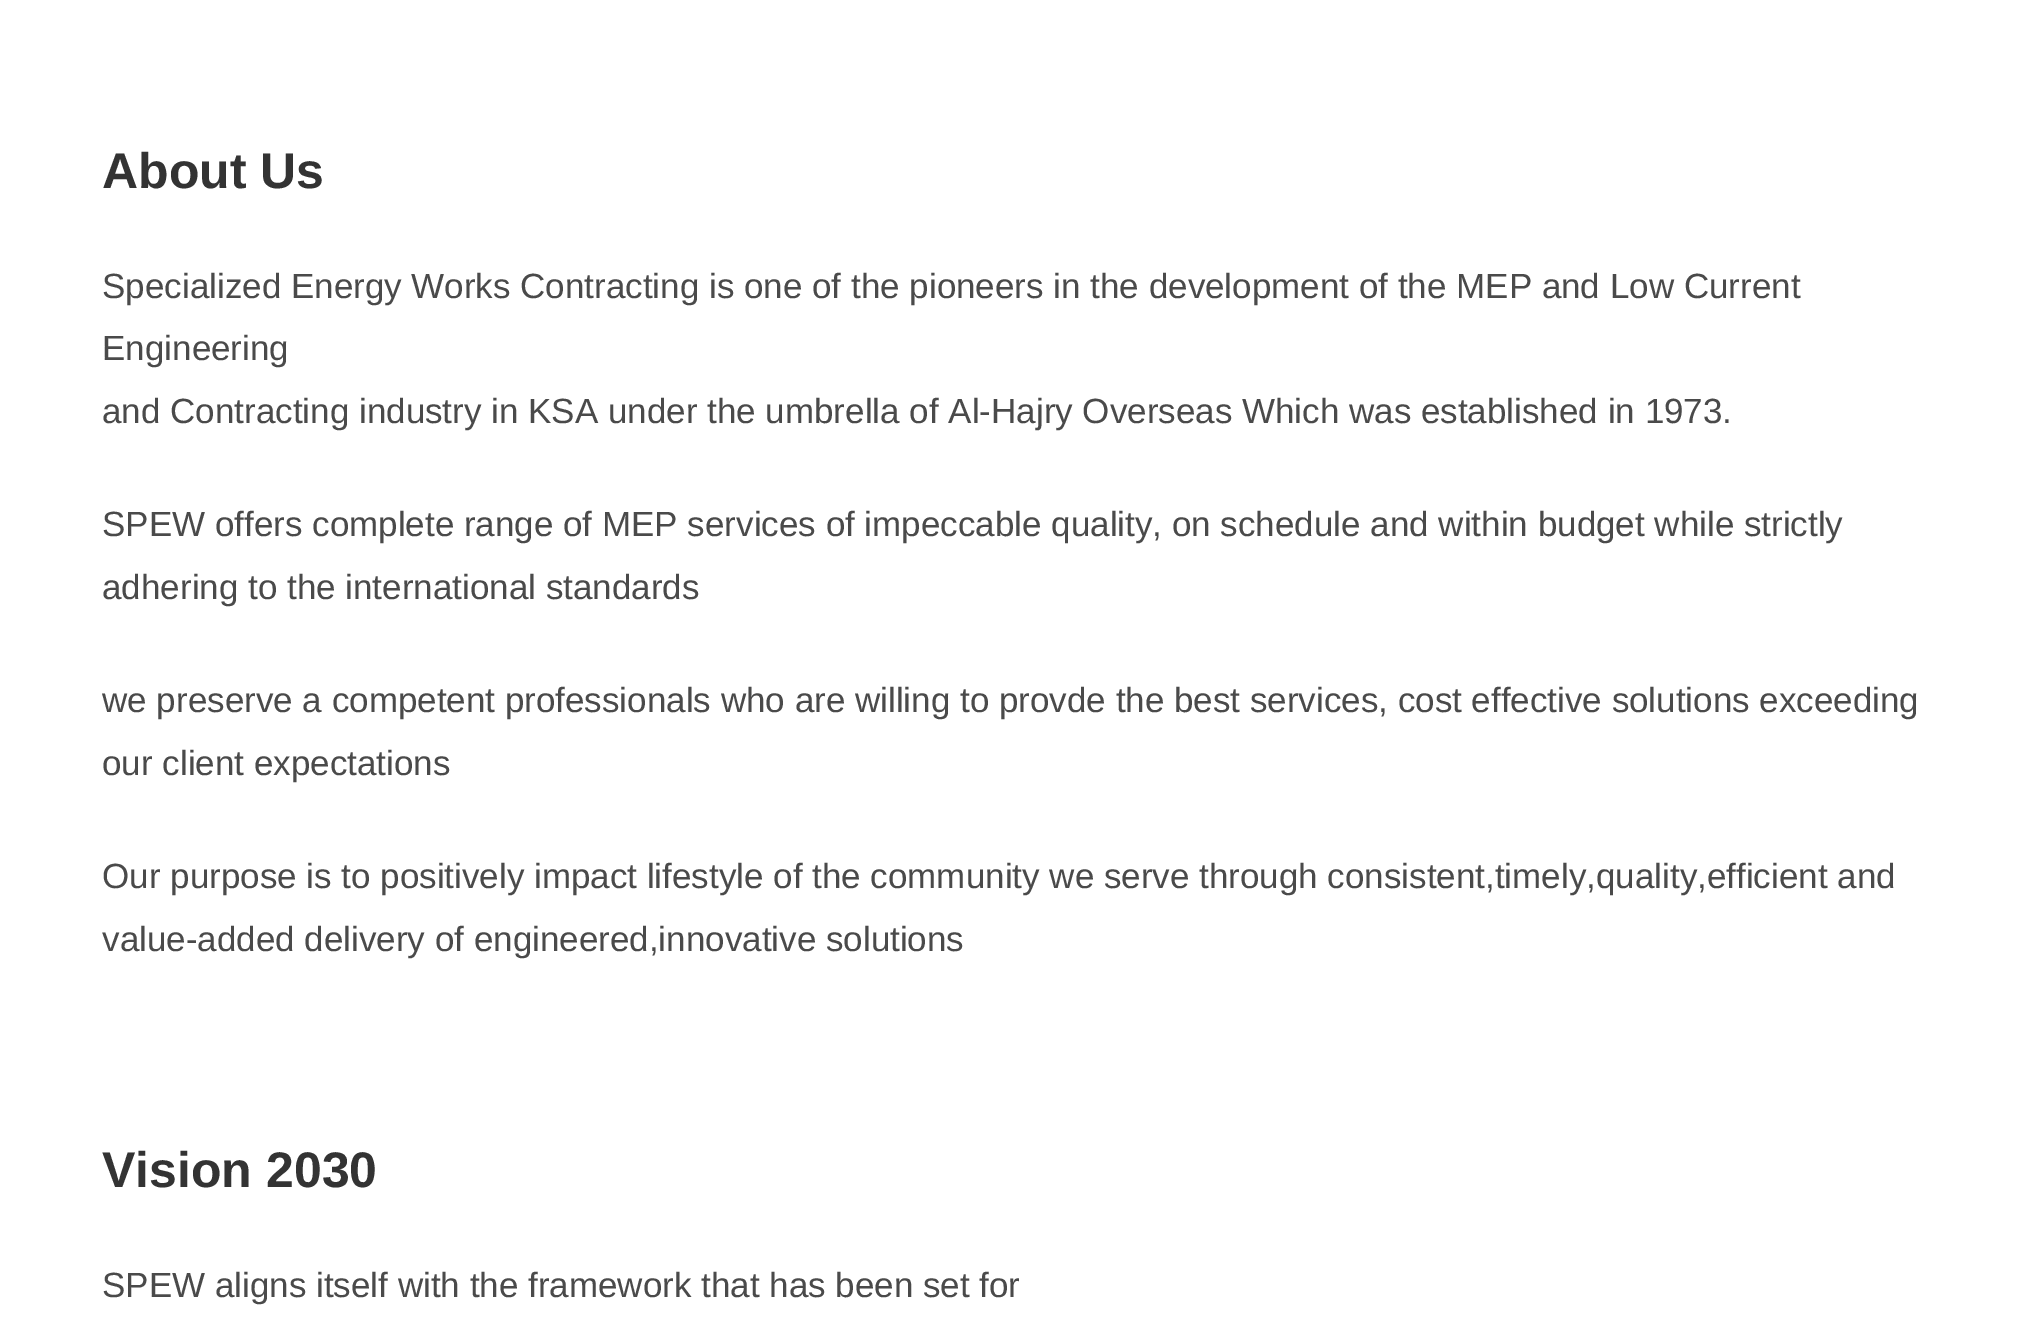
%!PS
<< /PageSize [2043 1325] >> setpagedevice
/rgb { dup -16 bitshift 255 div exch dup -8 bitshift 255 and 255 div exch 255 and 255 div setrgbcolor } def
/font { [ exch dup neg 0 0 3 -1 roll 0 0 ] selectfont } def
/text { moveto show } def
0 1325 translate 1 -1 scale
4 setmiterlimit
/s1 { /LiberationSans-Bold 50 font 16#333333 rgb } def
/s2 { /LiberationSans-Regular 35 font 16#4A4A4A rgb } def
16#FFFFFF rgb
0 0 2043 1325 rectfill
s1
(About Us) 102 188 text
s2
(Specialized Energy Works Contracting is one of the pioneers in the development of the MEP and Low Current) 102 298 text
(Engineering) 102 360 text
(and Contracting industry in KSA under the umbrella of Al-Hajry Overseas Which was established in 1973.) 102 423 text
(SPEW offers complete range of MEP services of impeccable quality, on schedule and within budget while strictly) 102 536 text
(adhering to the international standards) 102 599 text
(we preserve a competent professionals who are willing to provde the best services, cost effective solutions exceeding) 102 712 text
(our client expectations) 102 775 text
(Our purpose is to positively impact lifestyle of the community we serve through consistent,timely,quality,efficient and) 102 888 text
(value-added delivery of engineered,innovative solutions) 102 951 text
s1
(Vision 2030) 102 1187 text
s2
(SPEW aligns itself with the framework that has been set for) 102 1297 text
showpage
